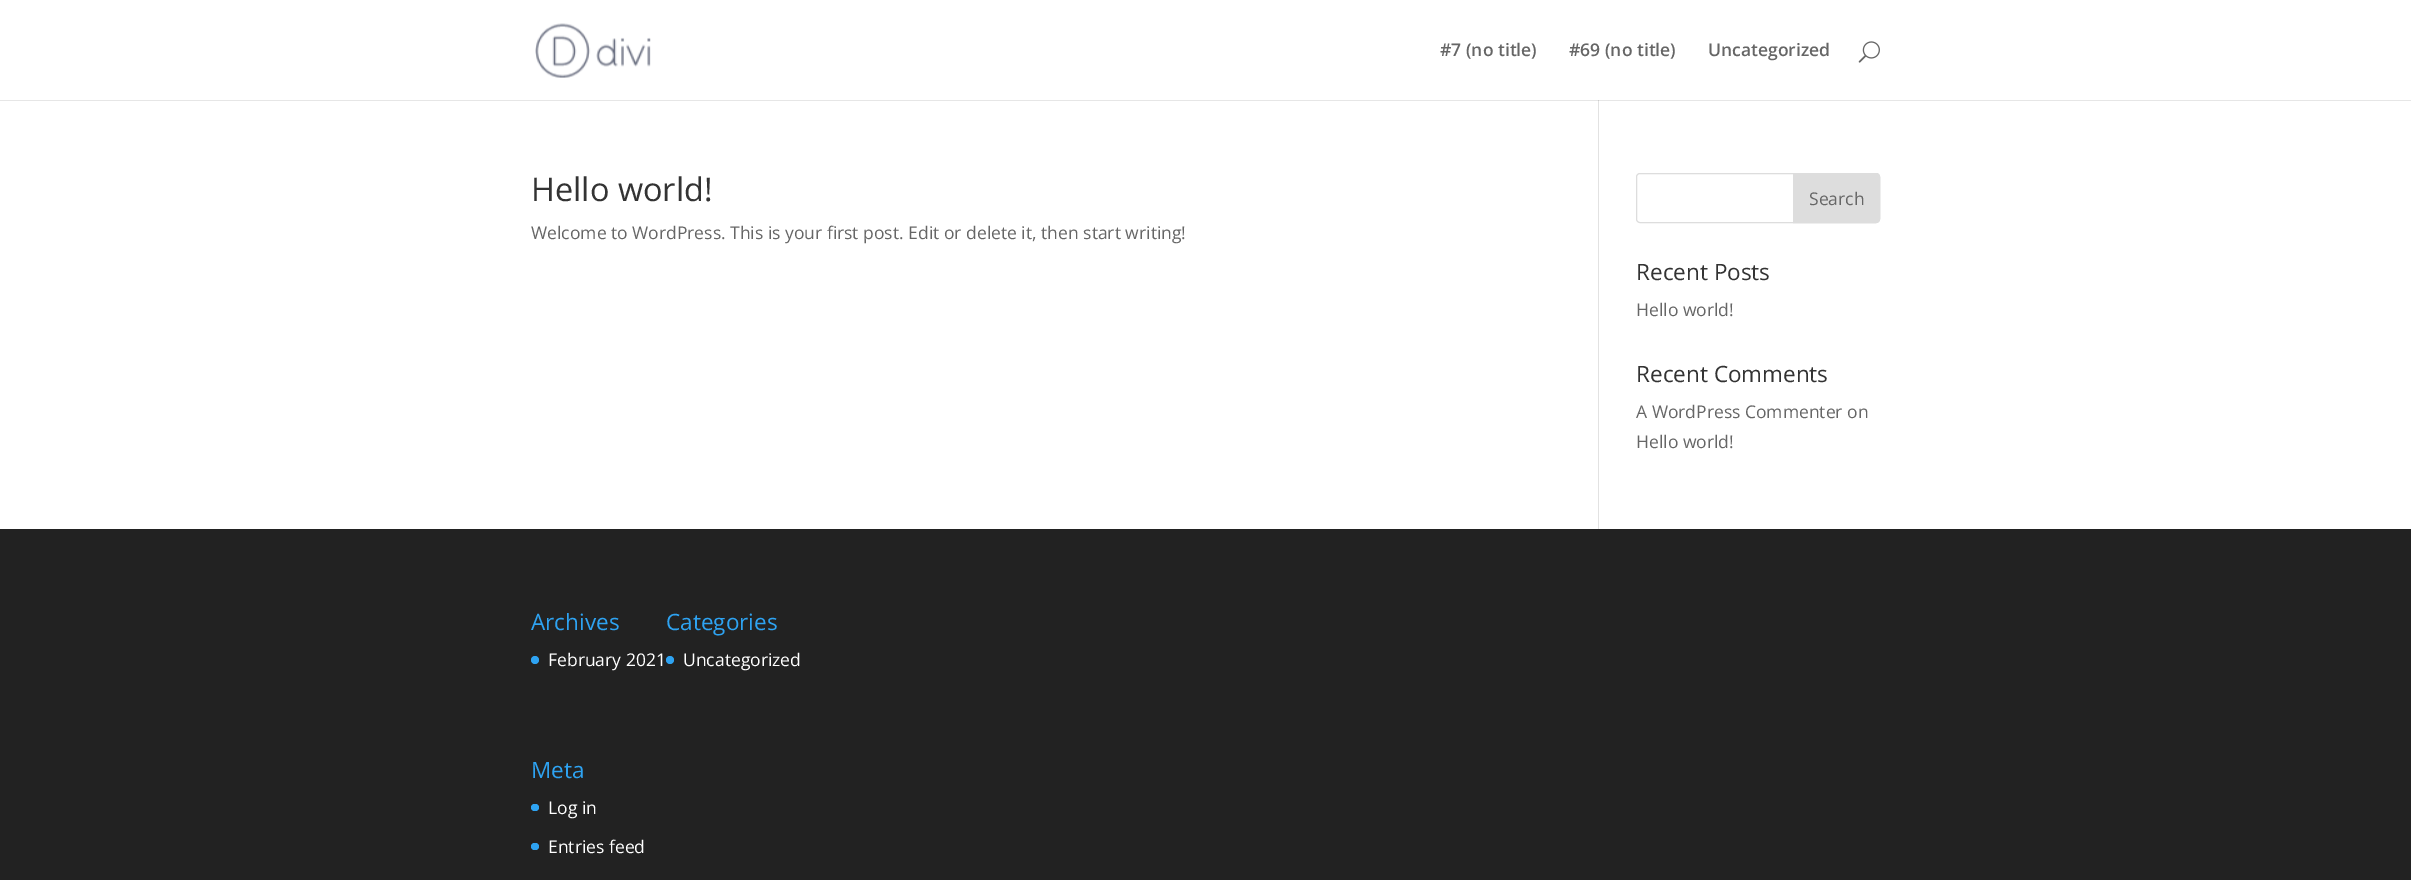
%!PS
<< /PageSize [2411 880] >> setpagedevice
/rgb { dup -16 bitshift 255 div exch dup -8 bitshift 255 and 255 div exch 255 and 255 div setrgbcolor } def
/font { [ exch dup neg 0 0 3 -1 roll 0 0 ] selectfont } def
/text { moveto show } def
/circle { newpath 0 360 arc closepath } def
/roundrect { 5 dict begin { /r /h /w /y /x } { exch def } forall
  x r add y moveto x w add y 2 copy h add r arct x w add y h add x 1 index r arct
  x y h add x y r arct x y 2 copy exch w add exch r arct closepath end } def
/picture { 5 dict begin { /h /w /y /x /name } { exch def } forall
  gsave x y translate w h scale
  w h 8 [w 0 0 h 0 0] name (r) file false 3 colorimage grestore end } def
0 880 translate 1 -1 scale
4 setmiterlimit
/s1 { /OpenSans-SemiBold 17.5 font 16#666666 rgb } def
/s2 { /OpenSans-Regular 32.5 font 16#333333 rgb } def
/s3 { /OpenSans-Regular 17.5 font 16#666666 rgb } def
/s4 { /OpenSans-Regular 22.5 font 16#333333 rgb } def
/s5 { /OpenSans-Regular 22.5 font 16#2EA3F2 rgb } def
/s6 { /OpenSans-Regular 17.5 font 16#FFFFFF rgb } def
16#FFFFFF rgb
0 0 2411 880 rectfill
16#E6E6E6 rgb
0 100 2411 1 rectfill
(pic1.raw) 535 23 116 55 picture
s1
(#7 \(no title\)) 1440 56 text
(#69 \(no title\)) 1569 56 text
(Uncategorized) 1708 56 text
(pic2.raw) 1858 41 22 22 picture
16#E2E2E2 rgb
1598 100 1 429 rectfill
16#CBCBCB rgb
1598 100 1 1 rectfill
s2
(Hello world!) 531 201 text
s3
(Welcome to WordPress. This is your first post. Edit or delete it, then start writing!) 531 239 text
16#DDDDDD rgb
1636.5 173.5 243 49 3.5 roundrect stroke
1793.5 173.5 moveto 1876 173.5 lineto 1878 173.5 1879.5 175 1879.5 177 curveto 1879.5 219 lineto 1879.5 221 1878 222.5 1876 222.5 curveto 1793.5 222.5 lineto closepath gsave fill grestore
stroke
s3
(Search) 1809 205 text
s4
(Recent Posts) 1636 280 text
s3
(Hello world!) 1636 316 text
s4
(Recent Comments) 1636 382 text
s3
(A WordPress Commenter on) 1636 418 text
(Hello world!) 1636 448 text
16#222222 rgb
0 529 2411 351 rectfill
s5
(Archives) 531 630 text
535 660 4 circle fill
s6
(February 2021) 548 666 text
s5
(Categories) 666 630 text
670 660 4 circle fill
s6
(Uncategorized) 683 666 text
s5
(Meta) 531 778 text
531 804 8 7 3.5 roundrect fill
s6
(Log in) 548 814 text
16#2EA3F2 rgb
531 843 8 7 3.5 roundrect fill
s6
(Entries feed) 548 853 text
showpage
